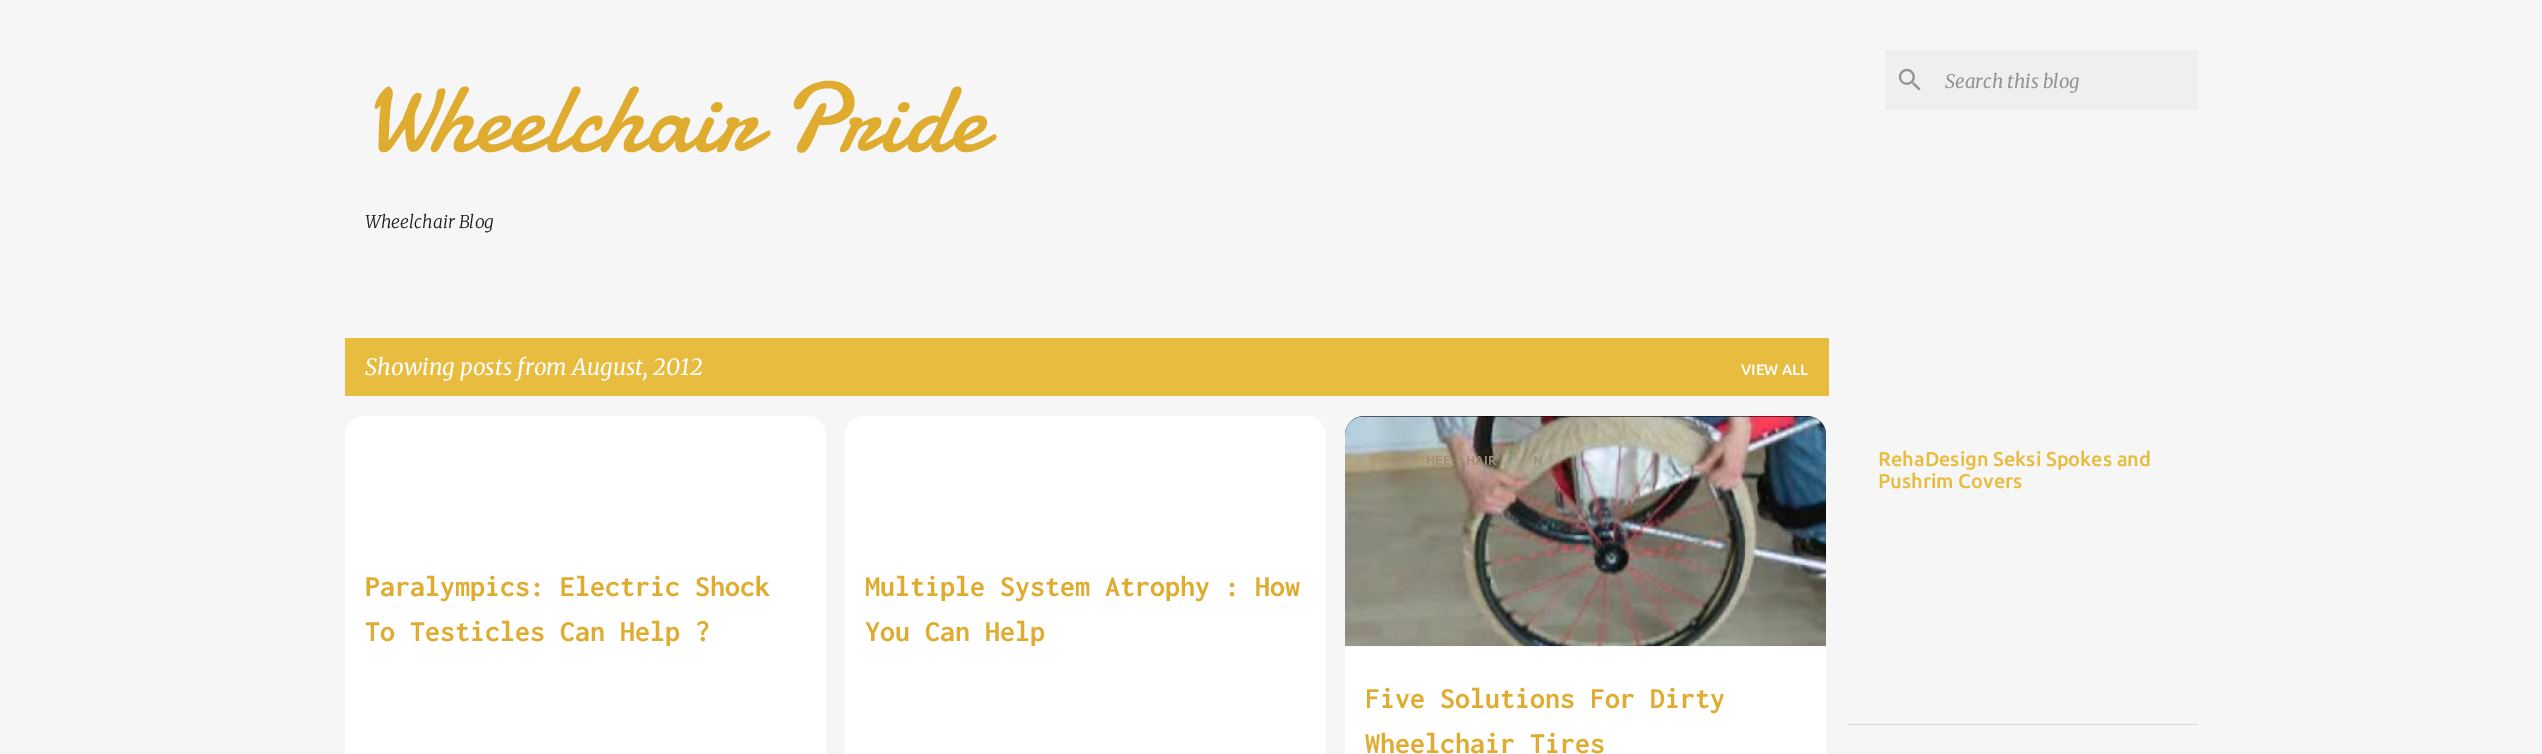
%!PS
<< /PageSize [2542 754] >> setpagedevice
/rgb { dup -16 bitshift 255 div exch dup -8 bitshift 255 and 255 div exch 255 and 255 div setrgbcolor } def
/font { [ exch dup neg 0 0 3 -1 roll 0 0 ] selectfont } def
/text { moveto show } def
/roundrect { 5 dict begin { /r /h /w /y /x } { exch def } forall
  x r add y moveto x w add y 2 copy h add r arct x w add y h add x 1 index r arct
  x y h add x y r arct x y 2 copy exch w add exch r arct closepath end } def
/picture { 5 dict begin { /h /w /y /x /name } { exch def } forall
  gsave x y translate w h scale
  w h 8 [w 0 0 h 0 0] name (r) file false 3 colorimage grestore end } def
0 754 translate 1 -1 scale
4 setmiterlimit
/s1 { /Damion-Regular 100 font 16#DFAC30 rgb } def
/s2 { /Merriweather-LightItalic 17.5 font 16#1D1D1D rgb } def
/s3 { /Merriweather-Italic 18.75 font 16#949494 rgb } def
/s4 { /Merriweather-Italic 22.5 font 16#FFFFFF rgb } def
/s5 { /Ubuntu-Medium 15 font 16#FFFFFF rgb } def
/s6 { /Inconsolata-Bold 30 font 16#DFAC30 rgb } def
/s7 { /Ubuntu-Medium 13 font 16#9D907B rgb } def
/s8 { /Ubuntu-Medium 20 font 16#E7BC3F rgb } def
16#F6F6F6 rgb
0 0 2542 754 rectfill
s1
(Wheelchair Pride) 365 151 text
s2
(Wheelchair Blog) 365 228 text
16#EFEFEF rgb
1885 50 313 60 rectfill
(pic1.raw) 1898 68 23 23 picture
s3
(Search this blog) 1945 88 text
16#E7BC3F rgb
345 338 1484 58 rectfill
s4
(Showing posts from August, 2012) 365 375 text
s5
(VIEW ALL) 1741 375 text
345 416 481 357 19 roundrect fill
s6
(Paralympics: Electric Shock) 365 596 text
(To Testicles Can Help ?) 365 641 text
16#FFFFFF rgb
845 416 481 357 19 roundrect fill
s6
(Multiple System Atrophy : How) 865 596 text
(You Can Help) 865 641 text
16#FFFFFF rgb
1345 416 481 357 19 roundrect fill
16#000000 rgb
1364 416 moveto 1807 416 lineto 1817.5 416 1826 424.5 1826 435 curveto 1826 646 lineto 1345 646 lineto 1345 435 lineto 1345 424.5 1353.5 416 1364 416 curveto closepath fill
(pic2.raw) 1345 416 481 231 picture
s7
(HEE) 1426 465 text
(HAIR) 1466 465 text
(N) 1533 465 text
s6
(Five Solutions For Dirty) 1365 708 text
(Wheelchair Tires) 1365 753 text
s8
(RehaDesign Seksi Spokes and) 1878 466 text
(Pushrim Covers) 1878 488 text
16#D8D8D8 rgb
1848 724 350 1 rectfill
showpage
